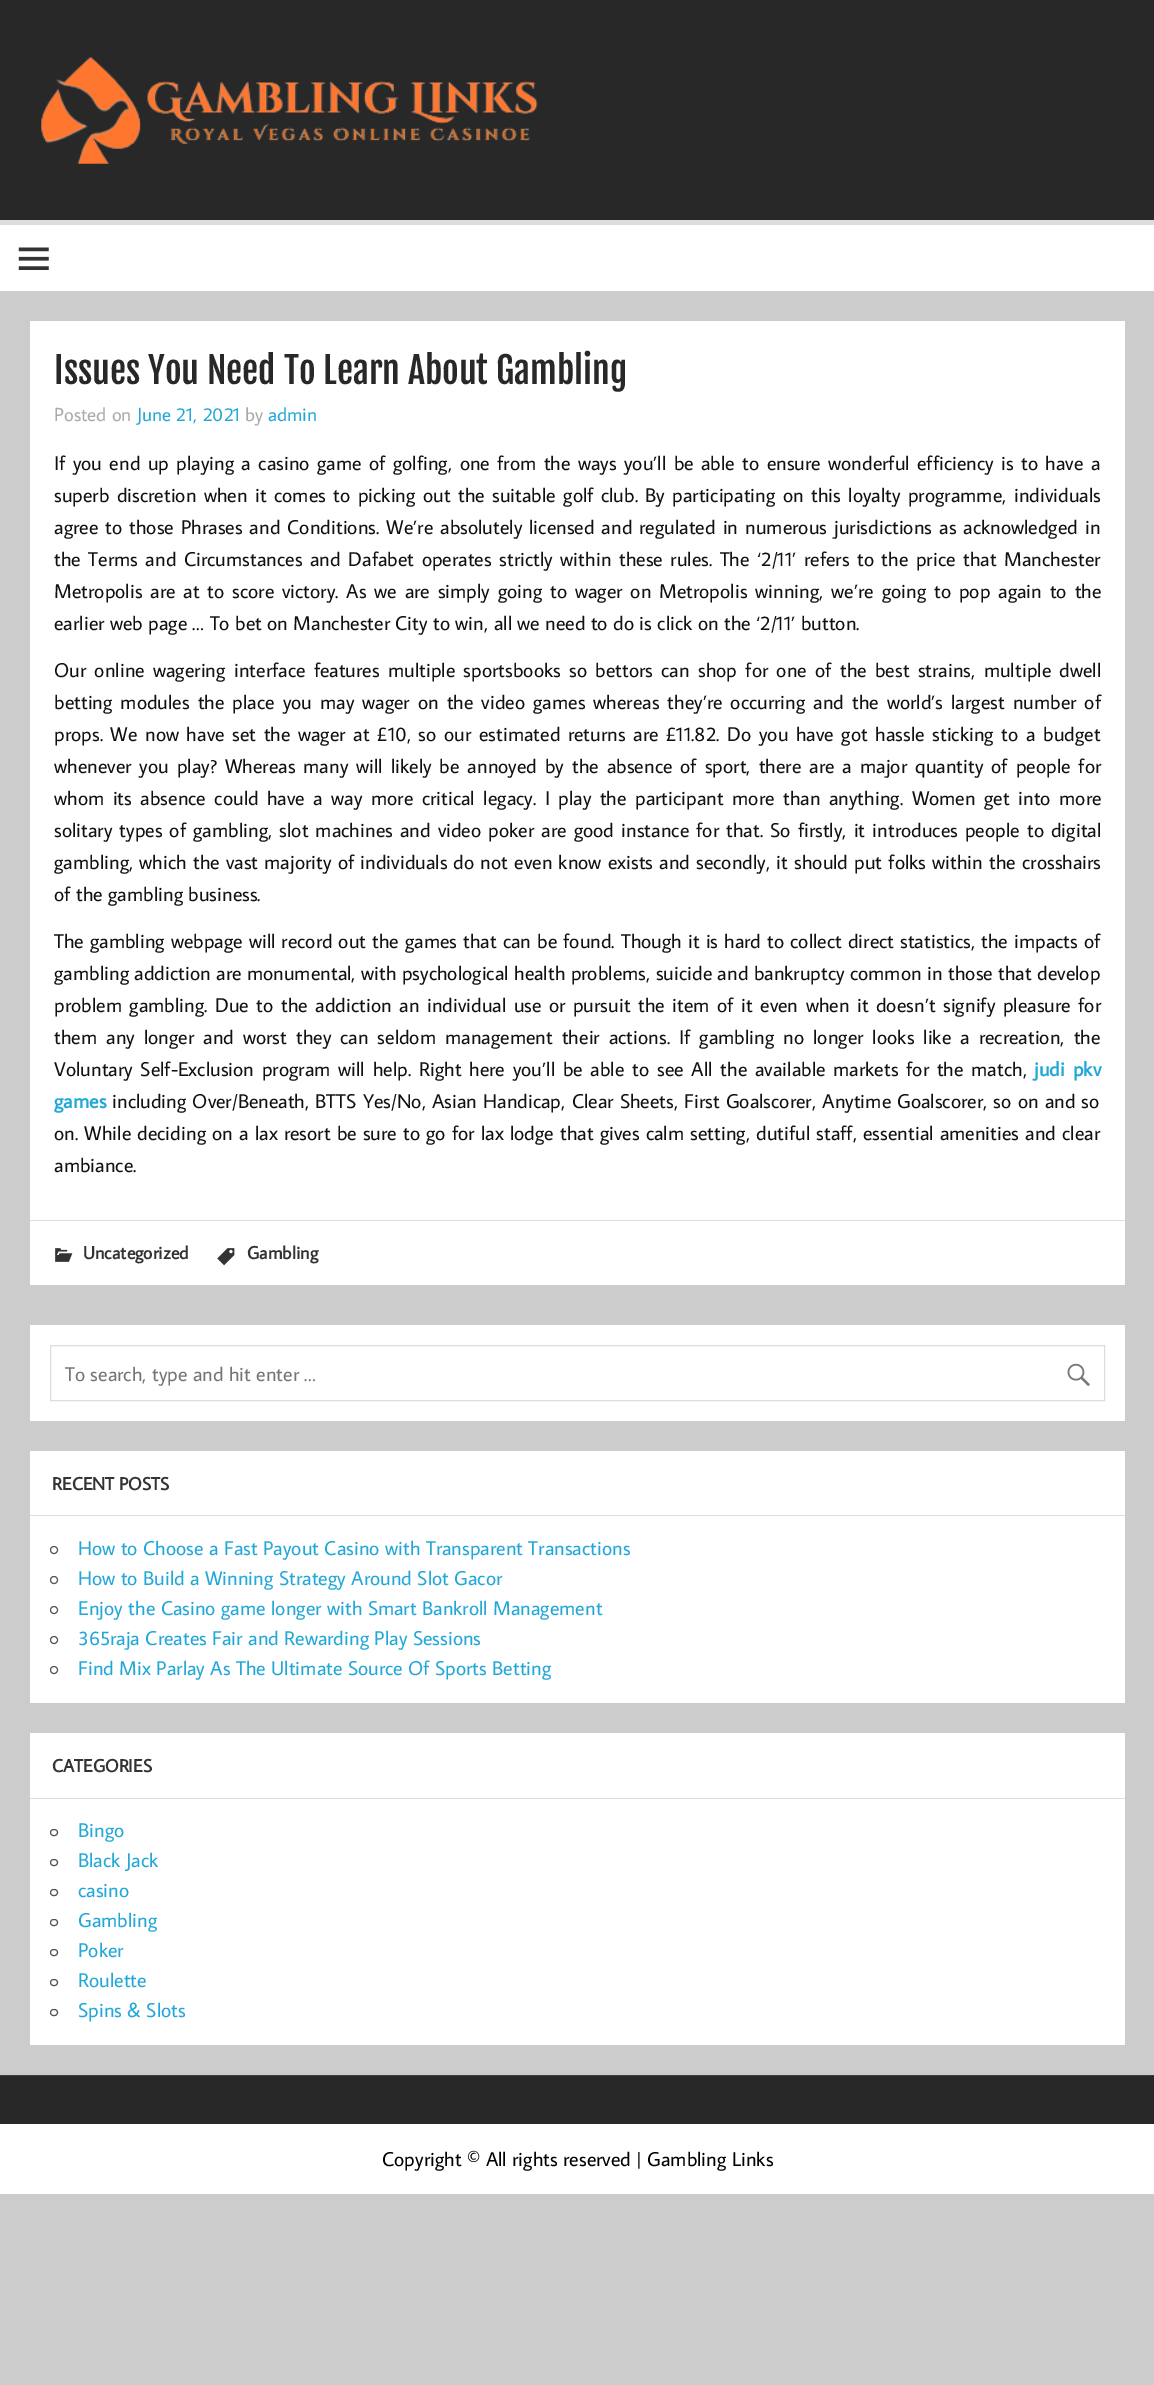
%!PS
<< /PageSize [1154 2385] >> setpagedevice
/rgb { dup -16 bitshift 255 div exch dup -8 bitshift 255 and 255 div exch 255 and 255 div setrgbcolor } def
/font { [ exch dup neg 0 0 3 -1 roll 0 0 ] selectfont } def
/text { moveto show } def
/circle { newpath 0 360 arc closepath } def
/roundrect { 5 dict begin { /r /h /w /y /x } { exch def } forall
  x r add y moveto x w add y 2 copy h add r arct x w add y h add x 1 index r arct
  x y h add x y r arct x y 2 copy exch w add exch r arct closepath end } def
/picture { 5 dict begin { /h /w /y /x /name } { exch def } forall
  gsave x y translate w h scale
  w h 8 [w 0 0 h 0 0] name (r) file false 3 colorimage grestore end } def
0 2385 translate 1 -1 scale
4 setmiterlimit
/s1 { /FjallaOne-Regular 36 font 16#282828 rgb } def
/s2 { /AverageSans-Regular 19 font 16#AAAAAA rgb } def
/s3 { /AverageSans-Regular 19 font 16#22A8D8 rgb } def
/s4 { /AverageSans-Regular 20 font 16#111111 rgb } def
/s5 { /AverageSans-Bold 20 font 16#22A8D8 rgb } def
/s6 { /AverageSans-Bold 18 font 16#333333 rgb } def
/s7 { /AverageSans-Regular 20 font 16#757575 rgb } def
/s8 { /AverageSans-Regular 20 font 16#22A8D8 rgb } def
/s9 { /AverageSans-Regular 20 font 16#000000 rgb } def
16#CCCCCC rgb
0 0 1154 2385 rectfill
16#282828 rgb
0 0 1154 220 rectfill
(pic1.raw) 41 57 497 107 picture
16#FFFFFF rgb
0 225 1154 66 rectfill
16#DDDDDD rgb
0 220 1154 5 rectfill
(pic2.raw) 18 247 31 23 picture
16#FFFFFF rgb
30 321 1095 964 rectfill
s1
(Issues You Need To Learn About Gambling) 54 384 text
s2
(Posted on) 54 421 text
s3
(June 21, 2021) 137 421 text
s2
(by) 245 421 text
s3
(admin) 268 421 text
/AverageSans-Regular 20 font
16#111111 rgb
54 470 moveto 2 0 32 (If you end up playing a casino game of golfing, one from the ways you’ll be able to ensure wonderful efficiency is to have a) widthshow
54 502 moveto 2 0 32 (superb discretion when it comes to picking out the suitable golf club. By participating on this loyalty programme, individuals) widthshow
54 534 moveto 1.6 0 32 (agree to those Phrases and Conditions. We’re absolutely licensed and regulated in numerous jurisdictions as acknowledged in) widthshow
54 566 moveto 2.2 0 32 (the Terms and Circumstances and Dafabet operates strictly within these rules. The ‘2/11’ refers to the price that Manchester) widthshow
54 598 moveto 2.4 0 32 (Metropolis are at to score victory. As we are simply going to wager on Metropolis winning, we’re going to pop again to the) widthshow
(earlier web page … To bet on Manchester City to win, all we need to do is click on the ‘2/11’ button.) 54 630 text
54 677 moveto 2.9 0 32 (Our online wagering interface features multiple sportsbooks so bettors can shop for one of the best strains, multiple dwell) widthshow
54 709 moveto 2.6 0 32 (betting modules the place you may wager on the video games whereas they’re occurring and the world’s largest number of) widthshow
54 741 moveto 2.2 0 32 (props. We now have set the wager at £10, so our estimated returns are £11.82. Do you have got hassle sticking to a budget) widthshow
54 773 moveto 2.6 0 32 (whenever you play? Whereas many will likely be annoyed by the absence of sport, there are a major quantity of people for) widthshow
54 805 moveto 3.1 0 32 (whom its absence could have a way more critical legacy. I play the participant more than anything. Women get into more) widthshow
54 837 moveto 1.7 0 32 (solitary types of gambling, slot machines and video poker are good instance for that. So firstly, it introduces people to digital) widthshow
54 869 moveto 0.75 0 32 (gambling, which the vast majority of individuals do not even know exists and secondly, it should put folks within the crosshairs) widthshow
(of the gambling business.) 54 901 text
54 948 moveto 0.6 0 32 (The gambling webpage will record out the games that can be found. Though it is hard to collect direct statistics, the impacts of) widthshow
(gambling addiction are monumental, with psychological health problems, suicide and bankruptcy common in those that develop) 54 980 text
54 1012 moveto 2.1 0 32 (problem gambling. Due to the addiction an individual use or pursuit the item of it even when it doesn’t signify pleasure for) widthshow
54 1044 moveto 3.6 0 32 (them any longer and worst they can seldom management their actions. If gambling no longer looks like a recreation, the) widthshow
54 1076 moveto 2.4 0 32 (Voluntary Self-Exclusion program will help. Right here you’ll be able to see All the available markets for the match,) widthshow
/AverageSans-Bold 20 font
16#22A8D8 rgb
1034 1076 moveto 2.4 0 32 (judi pkv) widthshow
(games) 54 1108 text
/AverageSans-Regular 20 font
16#111111 rgb
112 1108 moveto 0.75 0 32 (including Over/Beneath, BTTS Yes/No, Asian Handicap, Clear Sheets, First Goalscorer, Anytime Goalscorer, so on and so) widthshow
54 1140 moveto 0.75 0 32 (on. While deciding on a lax resort be sure to go for lax lodge that gives calm setting, dutiful staff, essential amenities and clear) widthshow
(ambiance.) 54 1172 text
16#DDDDDD rgb
30 1220 1095 1 rectfill
(pic3.raw) 55 1248 18 14 picture
s6
(Uncategorized) 83 1259 text
(pic4.raw) 217 1248 18 18 picture
(Gambling) 247 1259 text
16#FFFFFF rgb
30 1325 1095 96 rectfill
16#DDDDDD rgb
50.5 1345.5 1054 55 rectstroke
s7
(To search, type and hit enter …) 65 1381 text
(pic5.raw) 1067 1363 23 24 picture
16#FFFFFF rgb
30 1451 1095 252 rectfill
16#DDDDDD rgb
30 1515 1095 1 rectfill
s6
(RECENT POSTS) 52 1490 text
16#555555 rgb
54 1550 3.5 circle stroke
s8
(How to Choose a Fast Payout Casino with Transparent Transactions) 78 1555 text
16#555555 rgb
54 1580 3.5 circle stroke
s8
(How to Build a Winning Strategy Around Slot Gacor) 78 1585 text
16#555555 rgb
54 1610 3.5 circle stroke
s8
(Enjoy the Casino game longer with Smart Bankroll Management) 78 1615 text
16#555555 rgb
54 1640 3.5 circle stroke
s8
(365raja Creates Fair and Rewarding Play Sessions) 78 1645 text
16#555555 rgb
54 1670 3.5 circle stroke
s8
(Find Mix Parlay As The Ultimate Source Of Sports Betting) 78 1675 text
16#FFFFFF rgb
30 1733 1095 312 rectfill
16#DDDDDD rgb
30 1798 1095 1 rectfill
s6
(CATEGORIES) 52 1772 text
16#555555 rgb
50.5 1829.5 7 6 3 roundrect stroke
s8
(Bingo) 78 1837 text
16#555555 rgb
50.5 1859.5 7 6 3 roundrect stroke
s8
(Black Jack) 78 1867 text
16#555555 rgb
50.5 1889.5 7 6 3 roundrect stroke
s8
(casino) 78 1897 text
16#555555 rgb
50.5 1919.5 7 6 3 roundrect stroke
s8
(Gambling) 78 1927 text
16#555555 rgb
50.5 1949.5 7 6 3 roundrect stroke
s8
(Poker) 78 1957 text
16#555555 rgb
50.5 1979.5 7 6 3 roundrect stroke
s8
(Roulette) 78 1987 text
16#555555 rgb
50.5 2009.5 7 6 3 roundrect stroke
s8
(Spins & Slots) 78 2017 text
16#282828 rgb
0 2076 1154 48 rectfill
16#3E3E3E rgb
0 2075 1154 1 rectfill
16#FFFFFF rgb
0 2124 1154 70 rectfill
s9
(Copyright © All rights reserved | Gambling Links) 382 2166 text
showpage
